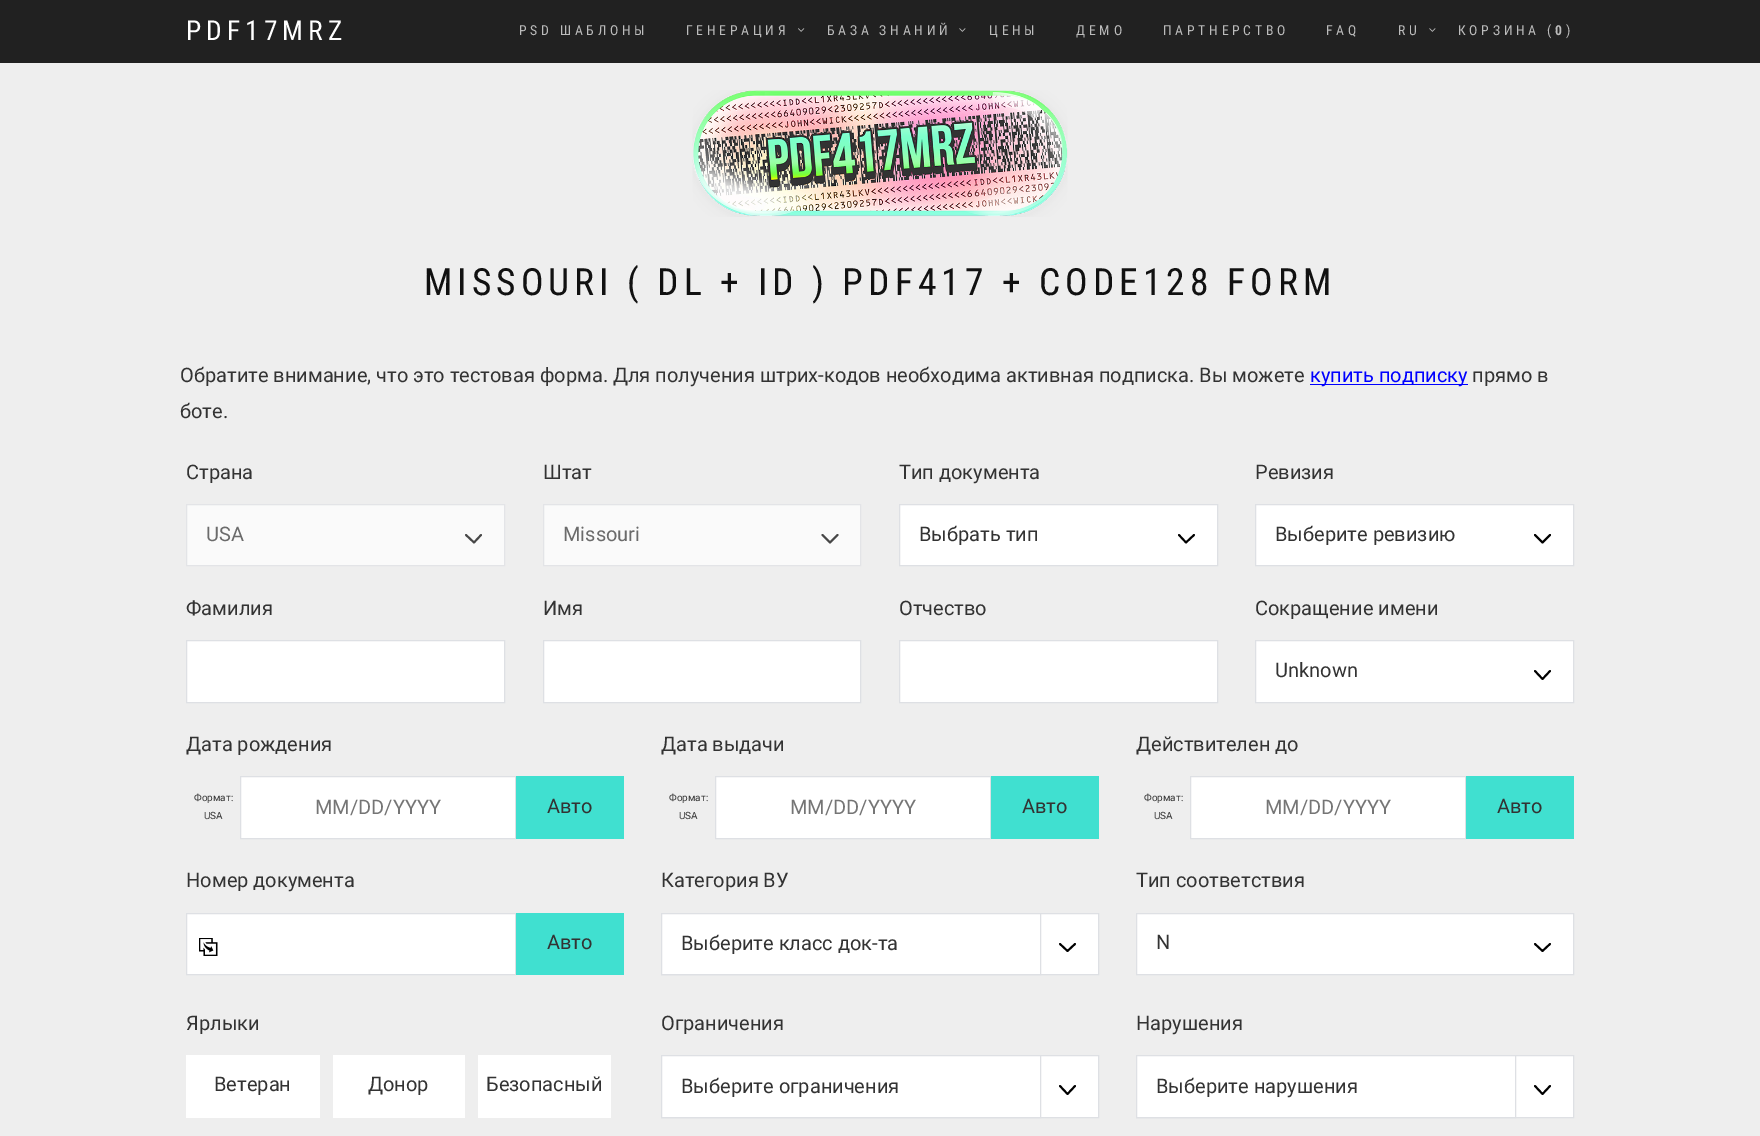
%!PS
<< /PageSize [1760 1136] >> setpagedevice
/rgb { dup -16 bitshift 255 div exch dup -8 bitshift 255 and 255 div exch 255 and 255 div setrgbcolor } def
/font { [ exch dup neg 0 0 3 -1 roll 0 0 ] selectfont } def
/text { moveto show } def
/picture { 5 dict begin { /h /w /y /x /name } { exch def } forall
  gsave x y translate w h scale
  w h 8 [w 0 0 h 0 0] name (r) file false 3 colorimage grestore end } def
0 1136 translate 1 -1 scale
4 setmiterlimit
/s1 { /Roboto-Regular 20 font 16#333333 rgb } def
/s2 { /Roboto-Regular 20 font 16#0000FF rgb } def
/s3 { /Roboto-Regular 20 font 16#6B6B6B rgb } def
/s4 { /Roboto-Regular 10 font 16#333333 rgb } def
/s5 { /Roboto-Regular 20 font 16#757575 rgb } def
16#EEEEEE rgb
0 0 1760 1136 rectfill
16#212121 rgb
0 0 1760 63 rectfill
/RobotoCondensed-Regular 27.5 font
16#FFFFFF rgb
186 40 moveto 5 0 (PDF17MRZ) ashow
/RobotoCondensed-Regular 13.75 font
16#BCBCBC rgb
519 35 moveto 3.75 0 (PSD ШАБЛОНЫ) ashow
686 35 moveto 3.75 0 (ГЕНЕРАЦИЯ) ashow
(pic1.raw) 798 28 7 4 picture
827 35 moveto 3.75 0 (БАЗА ЗНАНИЙ) ashow
(pic2.raw) 959 28 7 4 picture
989 35 moveto 3.75 0 (ЦЕНЫ) ashow
1076 35 moveto 3.75 0 (ДЕМО) ashow
1163 35 moveto 3.75 0 (ПАРТНЕРСТВО) ashow
1326 35 moveto 3.75 0 (FAQ) ashow
1398 35 moveto 3.75 0 (RU) ashow
(pic2.raw) 1429 28 7 4 picture
1458 35 moveto 3.75 0 (КОРЗИНА \() ashow
/RobotoCondensed-Bold 13.75 font
1555 35 moveto 3.75 0 (0) ashow
/RobotoCondensed-Regular 13.75 font
1566 35 moveto 3.75 0 (\)) ashow
(pic3.raw) 692 90 376 127 picture
/RobotoCondensed-Regular 37.5 font
16#111111 rgb
424 295 moveto 5 0 (MISSOURI \( DL + ID \) PDF417 + CODE128 FORM) ashow
s1
(Обратите внимание, что это тестовая форма. Для получения штрих-кодов необходима активная подписка. Вы можете) 180 382 text
16#0000FF rgb
1310 384 158 1 rectfill
(купить подписку) 1310 382 text
s1
(прямо в) 1472 382 text
(боте.) 180 418 text
(Страна) 186 479 text
16#FAFAFA rgb
187 505 317 60 rectfill
16#474747 rgb
1.9 setlinewidth
1 setlinecap
1 setlinejoin
466 535 moveto 474 542.5 lineto 481 535 lineto stroke
16#E3E4E7 rgb
1 setlinewidth
0 setlinecap
0 setlinejoin
186.5 504.5 318 61 rectstroke
s3
(USA) 206 541 text
s1
(Штат) 543 479 text
16#FAFAFA rgb
544 505 316 60 rectfill
16#474747 rgb
1.9 setlinewidth
1 setlinecap
1 setlinejoin
822.5 535 moveto 830 542.5 lineto 837.5 535 lineto stroke
16#E3E4E7 rgb
1 setlinewidth
0 setlinecap
0 setlinejoin
543.5 504.5 317 61 rectstroke
s3
(Missouri) 563 541 text
s1
(Тип документа) 899 479 text
16#FFFFFF rgb
900 505 317 60 rectfill
16#000000 rgb
1.9 setlinewidth
1 setlinecap
1 setlinejoin
1179 535 moveto 1186 542.5 lineto 1194 535 lineto stroke
16#DEE0E4 rgb
1 setlinewidth
0 setlinecap
0 setlinejoin
899.5 504.5 318 61 rectstroke
s1
(Выбрать тип) 919 541 text
(Ревизия) 1255 479 text
16#FFFFFF rgb
1256 505 317 60 rectfill
16#000000 rgb
1.9 setlinewidth
1 setlinecap
1 setlinejoin
1535 535 moveto 1542.5 542.5 lineto 1550 535 lineto stroke
16#DEE0E4 rgb
1 setlinewidth
0 setlinecap
0 setlinejoin
1255.5 504.5 318 61 rectstroke
s1
(Выберите ревизию) 1275 541 text
(Фамилия) 186 615 text
16#FFFFFF rgb
186.5 640.5 moveto 504.5 640.5 lineto 504.5 702.5 lineto 186.5 702.5 lineto closepath gsave fill grestore
16#DEE0E4 rgb
stroke
s1
(Имя) 543 615 text
16#FFFFFF rgb
543.5 640.5 moveto 860.5 640.5 lineto 860.5 702.5 lineto 543.5 702.5 lineto closepath gsave fill grestore
16#DEE0E4 rgb
stroke
s1
(Отчество) 899 615 text
16#FFFFFF rgb
899.5 640.5 moveto 1217.5 640.5 lineto 1217.5 702.5 lineto 899.5 702.5 lineto closepath gsave fill grestore
16#DEE0E4 rgb
stroke
s1
(Сокращение имени) 1255 615 text
16#FFFFFF rgb
1256 641 317 61 rectfill
16#000000 rgb
1.9 setlinewidth
1 setlinecap
1 setlinejoin
1535 671 moveto 1542.5 679 lineto 1550 671 lineto stroke
16#DEE0E4 rgb
1 setlinewidth
0 setlinecap
0 setlinejoin
1255.5 640.5 318 62 rectstroke
s1
(Unknown) 1275 677 text
(Дата рождения) 186 751 text
s4
(Формат:) 194 801 text
(USA) 204 819 text
16#FFFFFF rgb
240.5 776.5 moveto 515.5 776.5 lineto 515.5 838.5 lineto 240.5 838.5 lineto closepath gsave fill grestore
16#DEE0E4 rgb
stroke
s5
(MM/DD/YYYY) 315 814 text
16#40E0D0 rgb
516 776 108 63 rectfill
s1
(Авто) 547 813 text
(Дата выдачи) 661 751 text
s4
(Формат:) 669 801 text
(USA) 679 819 text
16#FFFFFF rgb
715.5 776.5 moveto 990.5 776.5 lineto 990.5 838.5 lineto 715.5 838.5 lineto closepath gsave fill grestore
16#DEE0E4 rgb
stroke
s5
(MM/DD/YYYY) 790 814 text
16#40E0D0 rgb
991 776 108 63 rectfill
s1
(Авто) 1022 813 text
(Действителен до) 1136 751 text
s4
(Формат:) 1144 801 text
(USA) 1154 819 text
16#FFFFFF rgb
1190.5 776.5 moveto 1465.5 776.5 lineto 1465.5 838.5 lineto 1190.5 838.5 lineto closepath gsave fill grestore
16#DEE0E4 rgb
stroke
s5
(MM/DD/YYYY) 1265 814 text
16#40E0D0 rgb
1466 776 108 63 rectfill
s1
(Авто) 1497 813 text
(Номер документа) 186 887 text
16#FFFFFF rgb
186.5 913.5 moveto 515.5 913.5 lineto 515.5 974.5 lineto 186.5 974.5 lineto closepath gsave fill grestore
16#DEE0E4 rgb
stroke
(pic4.raw) 199 938 19 18 picture
16#40E0D0 rgb
516 913 108 62 rectfill
s1
(Авто) 547 949 text
(Категория ВУ) 661 887 text
16#FFFFFF rgb
1041 914 57 60 rectfill
16#000000 rgb
1.9 setlinewidth
1 setlinecap
1 setlinejoin
1060 944 moveto 1067.5 951 lineto 1075 944 lineto stroke
16#DEE0E4 rgb
1 setlinewidth
0 setlinecap
0 setlinejoin
661.5 913.5 437 61 rectstroke
16#FFFFFF rgb
661.5 913.5 moveto 1040.5 913.5 lineto 1040.5 974.5 lineto 661.5 974.5 lineto closepath gsave fill grestore
16#DEE0E4 rgb
stroke
s1
(Выберите класс док-та) 681 950 text
(Тип cоответствия) 1136 887 text
16#FFFFFF rgb
1137 914 436 60 rectfill
16#000000 rgb
1.9 setlinewidth
1 setlinecap
1 setlinejoin
1535 944 moveto 1542.5 951 lineto 1550 944 lineto stroke
16#DEE0E4 rgb
1 setlinewidth
0 setlinecap
0 setlinejoin
1136.5 913.5 437 61 rectstroke
s1
(N) 1156 949 text
(Ярлыки) 186 1030 text
16#FFFFFF rgb
186 1055 134 63 rectfill
s1
(Ветеран) 214 1091 text
16#FFFFFF rgb
333 1055 132 63 rectfill
s1
(Донор) 368 1091 text
16#FFFFFF rgb
478 1055 133 63 rectfill
s1
(Безопасный) 486 1091 text
(Ограничения) 661 1030 text
16#FFFFFF rgb
1041 1056 57 61 rectfill
16#000000 rgb
1.9 setlinewidth
1 setlinecap
1 setlinejoin
1060 1086 moveto 1067.5 1094 lineto 1075 1086 lineto stroke
16#DEE0E4 rgb
1 setlinewidth
0 setlinecap
0 setlinejoin
661.5 1055.5 437 62 rectstroke
16#FFFFFF rgb
661.5 1055.5 moveto 1040.5 1055.5 lineto 1040.5 1117.5 lineto 661.5 1117.5 lineto closepath gsave fill grestore
16#DEE0E4 rgb
stroke
s1
(Выберите ограничения) 681 1093 text
(Нарушения) 1136 1030 text
16#FFFFFF rgb
1516 1056 57 61 rectfill
16#000000 rgb
1.9 setlinewidth
1 setlinecap
1 setlinejoin
1535 1086 moveto 1542.5 1094 lineto 1550 1086 lineto stroke
16#DEE0E4 rgb
1 setlinewidth
0 setlinecap
0 setlinejoin
1136.5 1055.5 437 62 rectstroke
16#FFFFFF rgb
1136.5 1055.5 moveto 1515.5 1055.5 lineto 1515.5 1117.5 lineto 1136.5 1117.5 lineto closepath gsave fill grestore
16#DEE0E4 rgb
stroke
s1
(Выберите нарушения) 1156 1093 text
showpage
